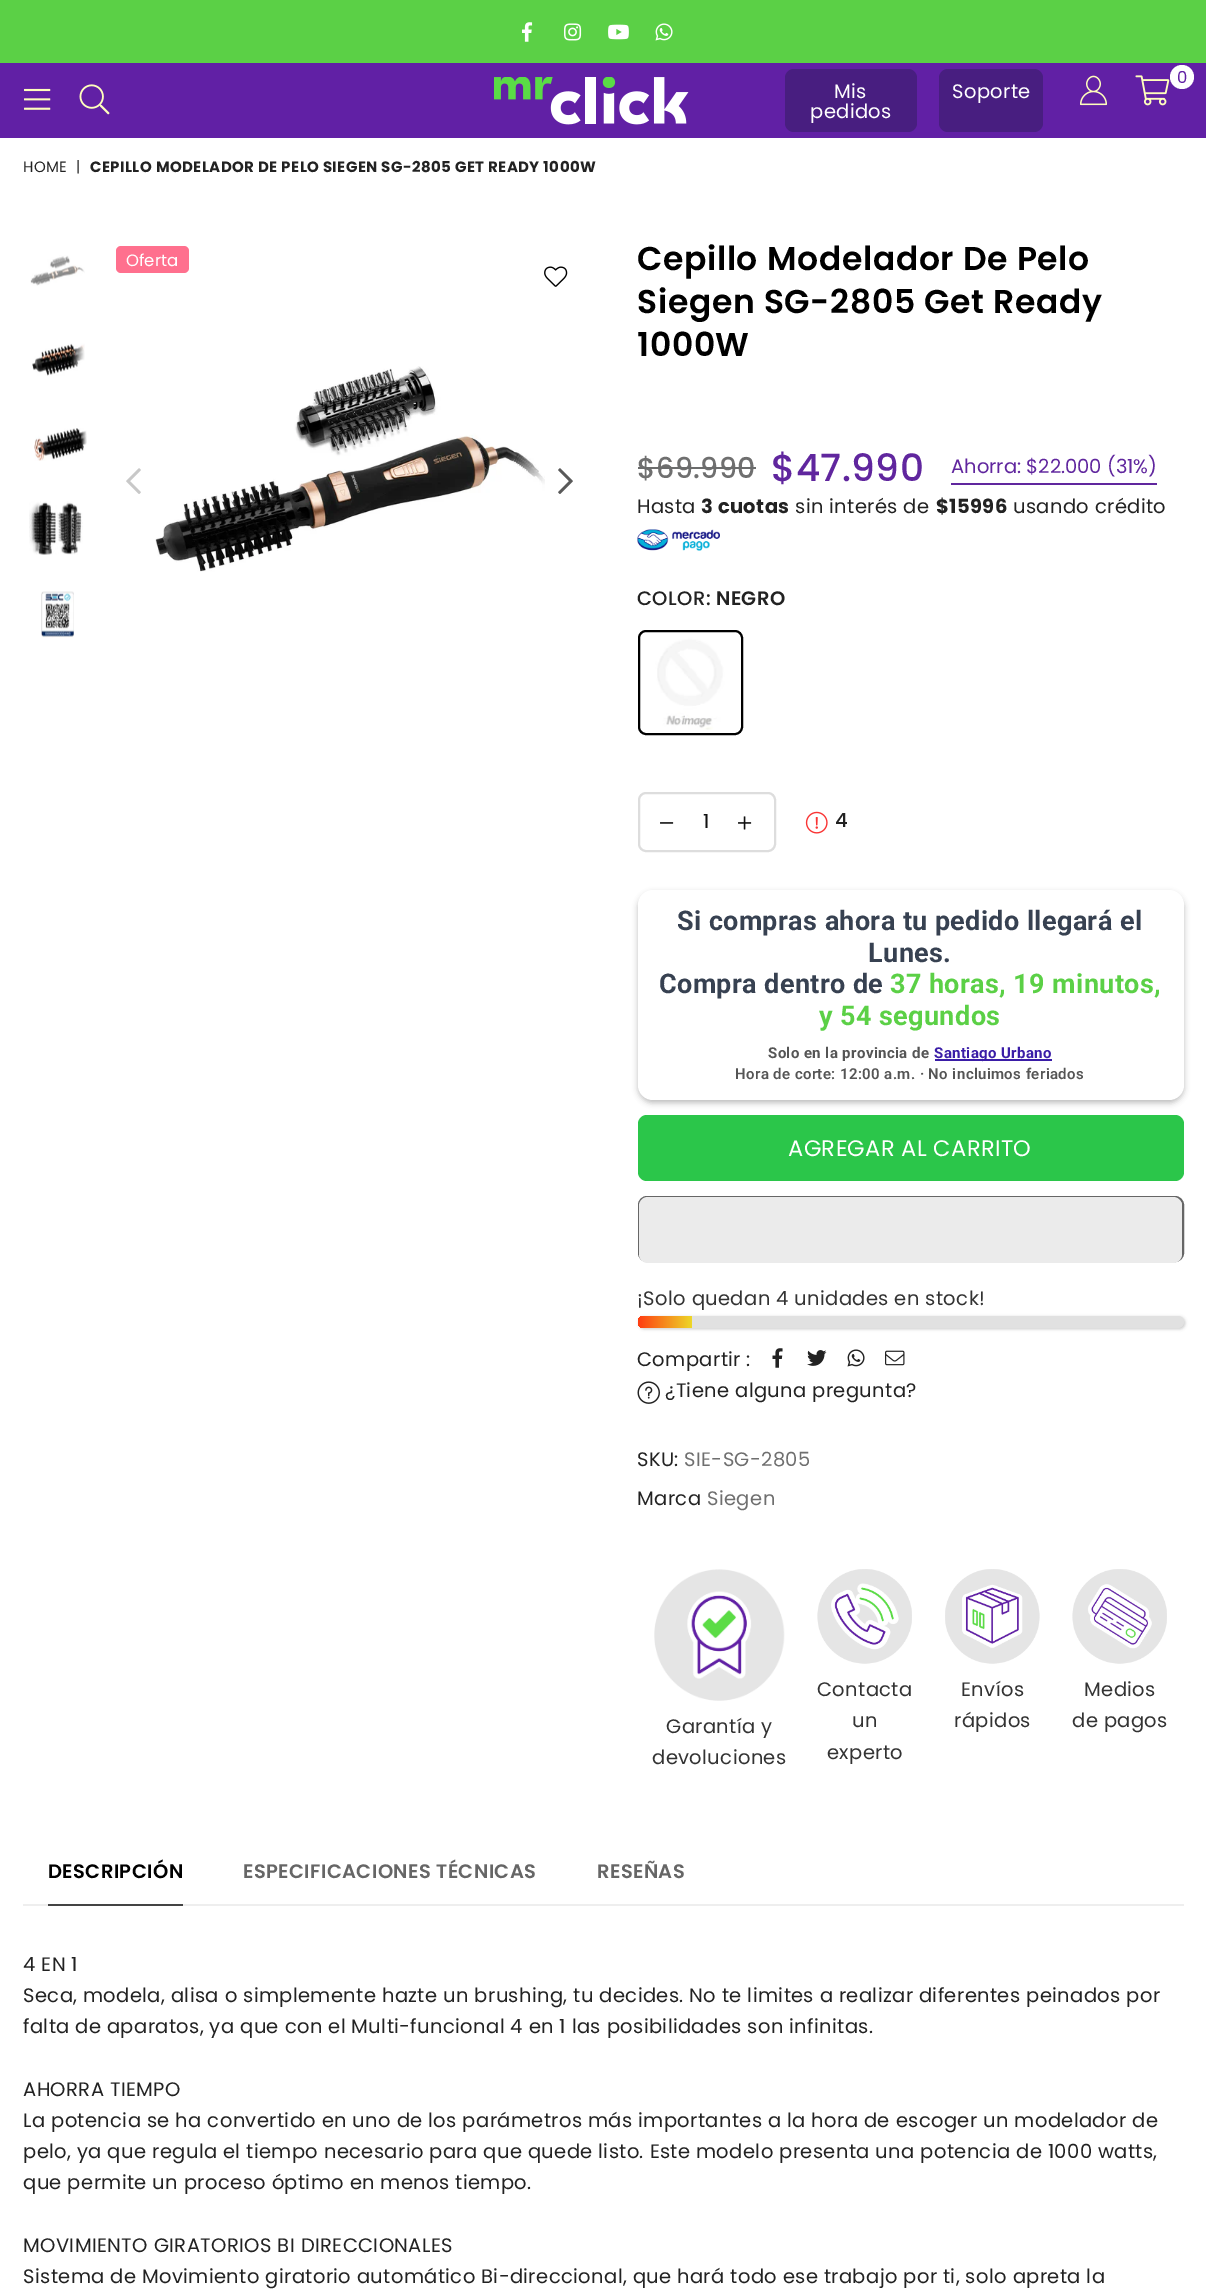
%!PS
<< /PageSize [1206 2289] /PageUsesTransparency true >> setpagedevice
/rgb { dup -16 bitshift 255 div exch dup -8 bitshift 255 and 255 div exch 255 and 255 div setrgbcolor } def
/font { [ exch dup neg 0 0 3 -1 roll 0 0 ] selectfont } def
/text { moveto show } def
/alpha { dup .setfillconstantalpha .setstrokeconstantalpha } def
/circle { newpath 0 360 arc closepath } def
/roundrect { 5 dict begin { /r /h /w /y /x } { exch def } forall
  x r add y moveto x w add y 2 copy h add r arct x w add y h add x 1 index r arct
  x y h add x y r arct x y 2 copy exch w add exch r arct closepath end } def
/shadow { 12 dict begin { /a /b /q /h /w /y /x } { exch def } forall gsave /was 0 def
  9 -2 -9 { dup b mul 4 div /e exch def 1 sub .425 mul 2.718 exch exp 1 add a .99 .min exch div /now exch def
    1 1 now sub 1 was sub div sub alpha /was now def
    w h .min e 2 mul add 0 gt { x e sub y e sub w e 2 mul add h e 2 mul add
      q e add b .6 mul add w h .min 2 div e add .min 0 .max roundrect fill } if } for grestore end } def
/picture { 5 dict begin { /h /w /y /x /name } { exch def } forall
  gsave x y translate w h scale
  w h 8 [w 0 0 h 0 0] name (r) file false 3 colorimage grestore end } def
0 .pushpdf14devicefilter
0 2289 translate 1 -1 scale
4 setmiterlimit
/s1 { /Poppins-Regular 16.5 font 16#FFFFFF rgb } def
/s2 { /Poppins-Regular 19.5 font 16#60269E rgb } def
/s3 { /Poppins-Regular 19.5 font 16#111111 rgb } def
16#FFFFFF rgb
0 0 1206 2289 rectfill
16#5BD046 rgb
0 0 1206 63 rectfill
(pic1.raw) 522 22 11 20 picture
(pic2.raw) 564 23 18 18 picture
(pic3.raw) 608 24 21 16 picture
(pic4.raw) 655 23 18 18 picture
16#6120A5 rgb
0 63 1206 75 rectfill
(pic5.raw) 24 88 27 22 picture
(pic6.raw) 79 84 31 31 picture
(pic7.raw) 494 77 195 48 picture
16#481E80 rgb
785 69 132 63 9 roundrect fill
/Poppins-Regular 19.5 font
16#FFFFFF rgb
834 98 moveto 0.39 0 (Mis) ashow
810 118 moveto 0.39 0 (pedidos) ashow
16#481E80 rgb
939 69 104 63 9 roundrect fill
16#FFFFFF rgb
952 98 moveto 0.39 0 (Soporte) ashow
(pic8.raw) 1080 75 27 31 picture
(pic9.raw) 1135 75 35 31 picture
1182 77 12 circle fill
/Poppins-Regular 16.5 font
16#6120A5 rgb
1177 83 moveto 0.39 0 (0) ashow
/Poppins-Regular 15 font
16#222222 rgb
23 172 moveto 0.39 0 (HOME) ashow
76 172 moveto 0.39 0 (|) ashow
/Poppins-Bold 15 font
90 172 moveto 0.39 0 (CEPILLO MODELADOR DE PELO SIEGEN SG-2805 GET READY 1000W) ashow
(pic10.raw) 30 255 55 31 picture
(pic11.raw) 32 343 53 33 picture
(pic12.raw) 34 428 53 33 picture
(pic13.raw) 29 501 54 54 picture
(pic14.raw) 41 591 33 47 picture
16#FF708E rgb
116 246 73 27 5 roundrect fill
s1
(Oferta) 126 266 text
(pic15.raw) 544 266 24 21 picture
(pic16.raw) 126 468 15 26 picture
(pic17.raw) 155 366 390 206 picture
(pic18.raw) 558 468 15 26 picture
/Poppins-SemiBold 33 font
16#000000 rgb
637 270 moveto 0.65 0 (Cepillo Modelador De Pelo) ashow
637 313 moveto 0.65 0 (Siegen SG-2805 Get Ready) ashow
637 356 moveto 0.65 0 (1000W) ashow
/Poppins-Medium 28.5 font
16#6F6F6F rgb
637 478 moveto 0.39 0 ($69.990) ashow
16#6B6C6C rgb
638 467 118 2 rectfill
/Poppins-Medium 37.5 font
16#60269E rgb
771 481 moveto 0.39 0 ($47.990) ashow
951 483 206 2 rectfill
s2
(Ahorra: $22.000 \(31%\)) 951 473 text
16#222222 rgb
637 513 moveto 0.39 0 (Hasta) ashow
/Poppins-Bold 19.5 font
701 513 moveto 0.39 0 (3 cuotas) ashow
/Poppins-Regular 19.5 font
795 513 moveto 0.39 0 (sin interés de) ashow
/Poppins-Bold 19.5 font
936 513 moveto 0.39 0 ($15996) ashow
/Poppins-Regular 19.5 font
1013 513 moveto 0.39 0 (usando crédito) ashow
(pic19.raw) 637 529 83 22 picture
/Poppins-Medium 19.5 font
637 605 moveto 0.39 0 (COLOR:) ashow
/Poppins-SemiBold 19.5 font
716 605 moveto 0.39 0 (NEGRO) ashow
(pic20.raw) 639 631 102 103 picture
16#000000 rgb
2 setlinewidth
639 631 103 103 7 roundrect stroke
16#DDDDDD rgb
639 793 136 58 7 roundrect stroke
(pic21.raw) 660 822 14 2 picture
s3
(1) 703 828 text
(pic22.raw) 738 816 14 14 picture
(pic23.raw) 805 811 23 23 picture
/Poppins-Medium 19.5 font
16#222222 rgb
835 827 moveto 0.39 0 (4) ashow
16#000000 rgb
638 893 546 210 15 3 0.25 shadow
16#FFFFFF rgb
638 890 546 210 15 roundrect fill
/Roboto-Bold 27 font
16#374151 rgb
677 930 moveto 0.39 0 (Si compras ahora tu pedido llegará el) ashow
868 962 moveto 0.39 0 (Lunes.) ashow
659 993 moveto 0.39 0 (Compra dentro de) ashow
16#5BD046 rgb
890 993 moveto 0.39 0 (37 horas, 19 minutos,) ashow
819 1025 moveto 0.39 0 (y 54 segundos) ashow
/Roboto-Bold 15 font
16#555555 rgb
768 1058 moveto 0.39 0 (Solo en la provincia de) ashow
16#3A1DA7 rgb
935 1059 117 2 rectfill
934 1058 moveto 0.39 0 (Santiago Urbano) ashow
/Roboto-SemiBold 15 font
16#555555 rgb
735 1079 moveto 0.39 0 (Hora de corte: 12:00 a.m. · No incluimos feriados) ashow
16#2BC64A rgb
638 1115 546 66 9 roundrect fill
/Poppins-Regular 22.5 font
16#FFFFFF rgb
788 1156 moveto 0.39 0 (AGREGAR AL CARRITO) ashow
16#666666 rgb
639 1197 544 64 8 roundrect stroke
16#EBEBEB rgb
639 1197 543 66 9 roundrect fill
/Poppins-Regular 19.5 font
16#333333 rgb
637 1305 moveto 0.39 0 (¡Solo quedan 4 unidades en stock!) ashow
16#000000 rgb
639 1317 546 12 6 1.5 0.2 shadow
16#E1E1E1 rgb
638 1316 546 12 6 roundrect fill
gsave 644 1316 moveto 692 1316 lineto 692 1328 lineto 644 1328 lineto 640.5 1328 638 1325.5 638 1322 curveto 638 1318.5 640.5 1316 644 1316 curveto closepath clip newpath
<< /ShadingType 2 /ColorSpace /DeviceRGB /Coords [638 1322 692 1322] /Extend [true true] /Function << /FunctionType 2 /Domain [0 1] /C0 [1 0.239 0.071] /C1 [0.929 0.843 0.157] /N 1 >> >> shfill grestore
16#222222 rgb
637 1366 moveto 0.39 0 (Compartir :) ashow
(pic24.raw) 772 1348 11 20 picture
(pic25.raw) 807 1350 20 16 picture
(pic26.raw) 847 1349 18 18 picture
(pic27.raw) 885 1350 20 16 picture
(pic28.raw) 637 1381 23 23 picture
665 1397 moveto 0.39 0 (¿Tiene alguna pregunta?) ashow
637 1466 moveto 0.39 0 (SKU:) ashow
16#6F6F6F rgb
684 1466 moveto 0.39 0 (SIE-SG-2805) ashow
16#222222 rgb
637 1505 moveto 0.39 0 (Marca) ashow
16#6F6F6F rgb
707 1505 moveto 0.39 0 (Siegen) ashow
(pic29.raw) 654 1569 131 132 picture
16#333333 rgb
666 1733 moveto 0.39 0 (Garantía y) ashow
652 1764 moveto 0.39 0 (devoluciones) ashow
(pic30.raw) 817 1569 95 95 picture
817 1696 moveto 0.39 0 (Contacta) ashow
852 1727 moveto 0.39 0 (un) ashow
827 1759 moveto 0.39 0 (experto) ashow
(pic31.raw) 945 1569 95 95 picture
961 1696 moveto 0.39 0 (Envíos) ashow
954 1727 moveto 0.39 0 (rápidos) ashow
(pic32.raw) 1072 1569 95 95 picture
1084 1696 moveto 0.39 0 (Medios) ashow
1072 1727 moveto 0.39 0 (de pagos) ashow
16#EEEEEE rgb
23 1904 1161 2 rectfill
/Poppins-SemiBold 19.5 font
16#000000 rgb
48 1878 moveto 0.39 0 (DESCRIPCIÓN) ashow
16#444444 rgb
48 1904 135 2 rectfill
16#666666 rgb
243 1878 moveto 0.39 0 (ESPECIFICACIONES TÉCNICAS) ashow
597 1878 moveto 0.39 0 (RESEÑAS) ashow
/Poppins-Regular 19.5 font
16#222222 rgb
23 1971 moveto 0.39 0 (4 EN 1) ashow
23 2002 moveto 0.39 0 (Seca, modela, alisa o simplemente hazte un brushing, tu decides. No te limites a realizar diferentes peinados por) ashow
23 2033 moveto 0.39 0 (falta de aparatos, ya que con el Multi-funcional 4 en 1 las posibilidades son infinitas.) ashow
23 2096 moveto 0.39 0 (AHORRA TIEMPO) ashow
23 2127 moveto 0.39 0 (La potencia se ha convertido en uno de los parámetros más importantes a la hora de escoger un modelador de) ashow
23 2158 moveto 0.39 0 (pelo, ya que regula el tiempo necesario para que quede listo. Este modelo presenta una potencia de 1000 watts,) ashow
23 2189 moveto 0.39 0 (que permite un proceso óptimo en menos tiempo.) ashow
23 2252 moveto 0.39 0 (MOVIMIENTO GIRATORIOS BI DIRECCIONALES) ashow
23 2283 moveto 0.39 0 (Sistema de Movimiento giratorio automático Bi-direccional, que hará todo ese trabajo por ti, solo apreta la) ashow
.poppdf14devicefilter showpage
